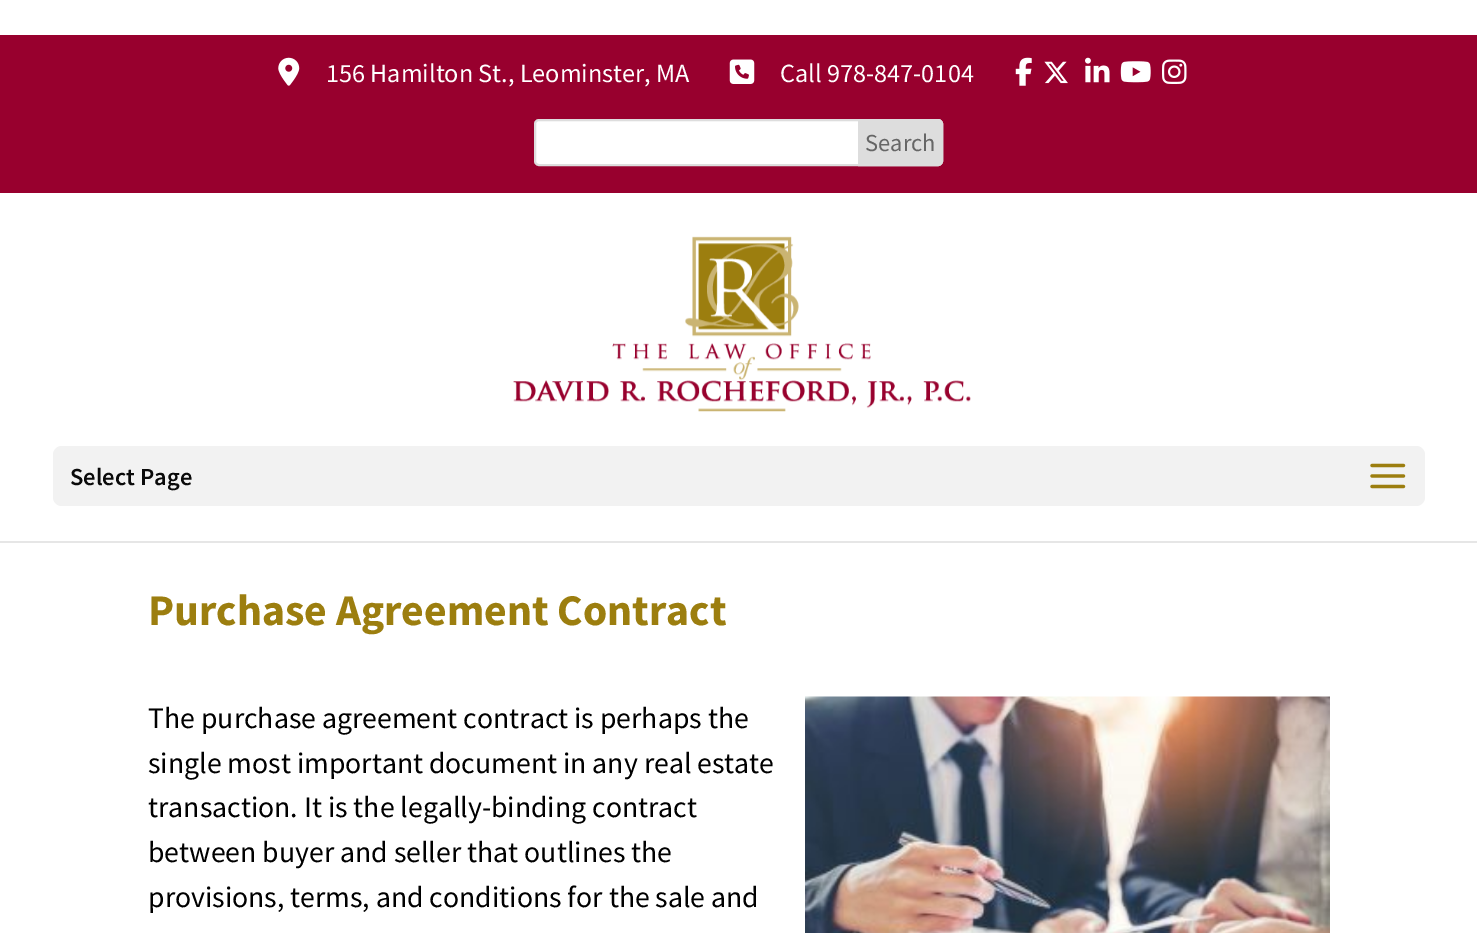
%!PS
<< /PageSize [1477 933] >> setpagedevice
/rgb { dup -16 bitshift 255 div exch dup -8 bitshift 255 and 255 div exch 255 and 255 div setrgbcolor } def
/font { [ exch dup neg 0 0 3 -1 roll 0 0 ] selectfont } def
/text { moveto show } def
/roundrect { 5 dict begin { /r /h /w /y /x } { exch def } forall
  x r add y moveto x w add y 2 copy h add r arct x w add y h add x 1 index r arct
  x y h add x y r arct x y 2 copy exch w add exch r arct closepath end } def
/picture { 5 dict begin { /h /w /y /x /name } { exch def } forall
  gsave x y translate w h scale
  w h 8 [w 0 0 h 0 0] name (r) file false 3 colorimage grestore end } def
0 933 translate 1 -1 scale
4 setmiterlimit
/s1 { /SourceSansPro-Regular 26.25 font 16#FFFFFF rgb } def
/s2 { /SourceSansPro-Regular 24.5 font 16#666666 rgb } def
/s3 { /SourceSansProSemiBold-SemiBold 24.5 font 16#0A0A0A rgb } def
/s4 { /SourceSansPro-Bold 43.75 font 16#9C7E0F rgb } def
/s5 { /SourceSansPro-Regular 29.75 font 16#000000 rgb } def
16#FFFFFF rgb
0 0 1477 933 rectfill
16#E6E6E6 rgb
0 541 1477 2 rectfill
16#98002E rgb
0 35 1477 158 rectfill
(pic1.raw) 278 57 22 29 picture
s1
(156 Hamilton St., Leominster, MA) 326 82 text
(pic2.raw) 729 59 26 25 picture
(Call 978-847-0104) 780 82 text
(pic3.raw) 1015 57 17 29 picture
(pic4.raw) 1044 61 24 23 picture
(pic5.raw) 1085 57 25 26 picture
(pic6.raw) 1120 61 31 22 picture
(pic7.raw) 1162 59 25 25 picture
535 120 407 45 4 roundrect gsave fill grestore
16#DDDDDD rgb
2 setlinewidth
stroke
859 120 moveto 938 120 lineto 940 120 942 122 942 124 curveto 942 161 lineto 942 163 940 165 938 165 curveto 859 165 lineto closepath gsave fill grestore
stroke
s2
(Search) 865 151 text
(pic8.raw) 513 236 458 176 picture
16#F2F2F2 rgb
53 446 1372 60 9 roundrect fill
s3
(Select Page) 70 485 text
(pic9.raw) 1370 463 36 26 picture
s4
(Purchase Agreement Contract) 148 625 text
s5
(The purchase agreement contract is perhaps the) 148 728 text
(pic10.raw) 805 696 525 237 picture
(single most important document in any real estate) 148 773 text
(transaction. It is the legally-binding contract) 148 817 text
(between buyer and seller that outlines the) 148 862 text
(provisions, terms, and conditions for the sale and) 148 907 text
showpage
